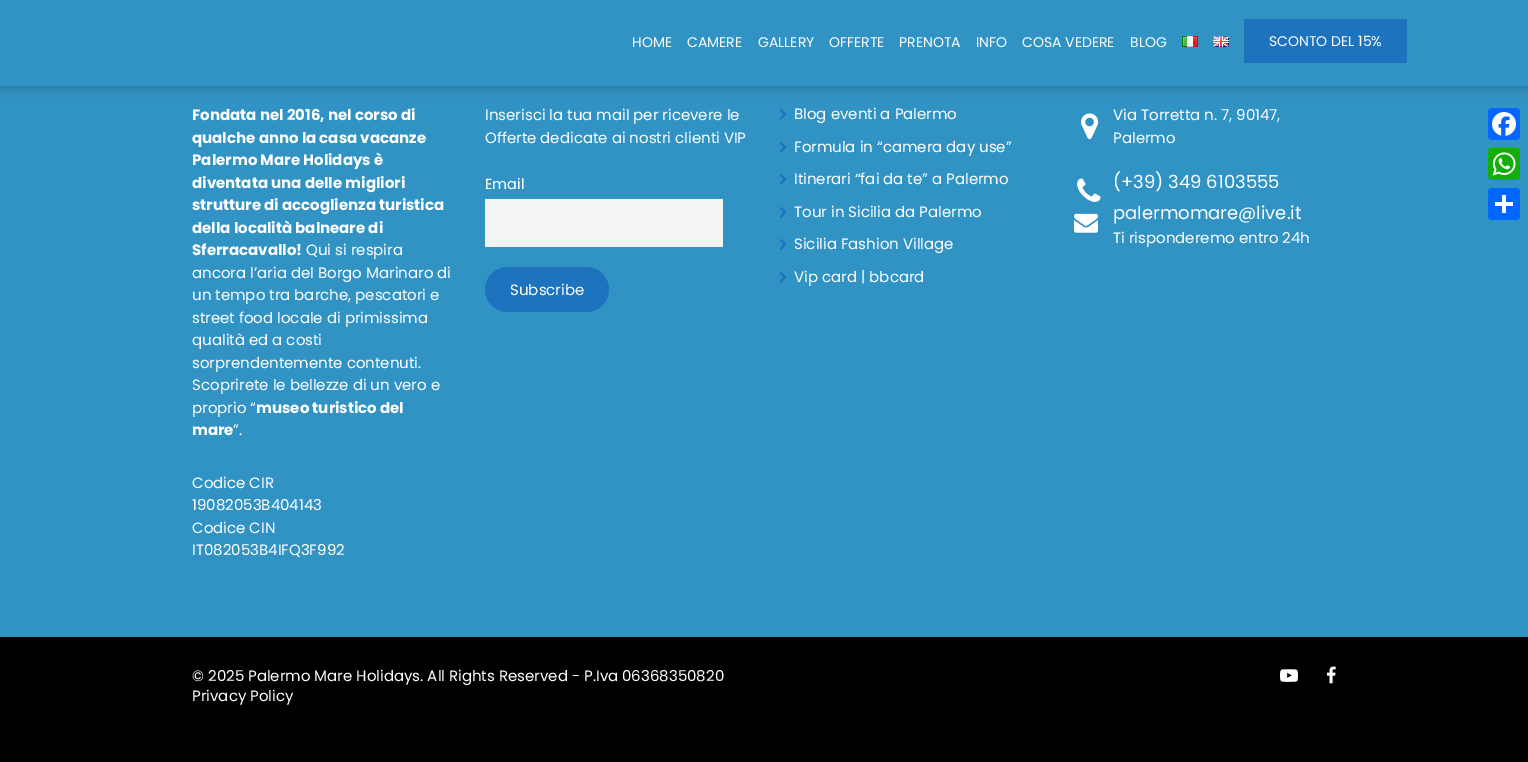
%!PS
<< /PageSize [1528 762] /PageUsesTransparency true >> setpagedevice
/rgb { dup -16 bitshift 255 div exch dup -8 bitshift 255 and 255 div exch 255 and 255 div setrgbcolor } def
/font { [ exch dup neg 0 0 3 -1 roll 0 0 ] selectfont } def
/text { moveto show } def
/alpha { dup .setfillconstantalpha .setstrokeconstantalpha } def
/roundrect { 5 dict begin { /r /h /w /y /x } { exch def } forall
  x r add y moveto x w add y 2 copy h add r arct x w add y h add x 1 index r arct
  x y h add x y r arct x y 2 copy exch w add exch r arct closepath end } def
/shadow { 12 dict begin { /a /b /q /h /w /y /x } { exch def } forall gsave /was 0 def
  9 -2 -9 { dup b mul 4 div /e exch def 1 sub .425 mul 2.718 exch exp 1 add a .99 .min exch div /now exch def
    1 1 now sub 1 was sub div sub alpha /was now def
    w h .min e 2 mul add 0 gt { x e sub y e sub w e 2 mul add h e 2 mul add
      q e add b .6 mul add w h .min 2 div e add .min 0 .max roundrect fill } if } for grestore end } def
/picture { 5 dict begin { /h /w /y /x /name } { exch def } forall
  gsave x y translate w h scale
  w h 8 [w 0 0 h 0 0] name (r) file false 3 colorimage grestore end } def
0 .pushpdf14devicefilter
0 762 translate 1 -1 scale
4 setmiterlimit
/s1 { /Poppins-Regular 14 font 16#FFFFFF rgb } def
/s2 { /Poppins-Bold 15 font 16#FFFFFF rgb } def
/s3 { /Poppins-Regular 15 font 16#FFFFFF rgb } def
/s4 { /Poppins-Regular 14.5 font 16#FFFFFF rgb } def
/s5 { /Poppins-Regular 18 font 16#FFFFFF rgb } def
16#3193C3 rgb
0 0 1528 762 rectfill
16#000000 rgb
-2 -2 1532 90 0 5 0.2 shadow
16#3193C3 rgb
0 0 1528 86 rectfill
s1
(HOME) 632 47 text
(CAMERE) 687 47 text
(GALLERY) 758 47 text
(OFFERTE) 829 47 text
(PRENOTA) 899 47 text
(INFO) 976 47 text
(COSA VEDERE) 1022 47 text
(BLOG) 1130 47 text
(pic1.raw) 1182 36 16 11 picture
(pic2.raw) 1213 36 16 11 picture
16#1E73BE rgb
1244 19 163 44 rectfill
s1
(SCONTO DEL 15%) 1269 46 text
s2
(Fondata nel 2016, nel corso di) 192 120 text
(qualche anno la casa vacanze) 192 143 text
(Palermo Mare Holidays è) 192 165 text
(diventata una delle migliori) 192 188 text
(strutture di accoglienza turistica) 192 210 text
(della località balneare di) 192 233 text
(Sferracavallo!) 192 255 text
s3
(Qui si respira) 306 255 text
(ancora l’aria del Borgo Marinaro di) 192 278 text
(un tempo tra barche, pescatori e) 192 300 text
(street food locale di primissima) 192 323 text
(qualità ed a costi) 192 345 text
(sorprendentemente contenuti.) 192 368 text
(Scoprirete le bellezze di un vero e) 192 390 text
(proprio “) 192 413 text
s2
(museo turistico del) 256 413 text
(mare) 192 435 text
s3
(”.) 233 435 text
(Inserisci la tua mail per ricevere le) 485 120 text
(Offerte dedicate ai nostri clienti VIP) 485 143 text
s4
(Email) 485 189 text
16#F4F4F4 rgb
485 199 238 48 rectfill
16#1E73BE rgb
485 267 124 45 22.5 roundrect fill
s3
(Subscribe) 510 295 text
(pic3.raw) 779 109 8 11 picture
(Blog eventi a Palermo) 794 119 text
(pic3.raw) 779 142 8 11 picture
(Formula in “camera day use”) 794 152 text
(pic3.raw) 779 174 8 11 picture
(Itinerari “fai da te” a Palermo) 794 184 text
(pic3.raw) 779 207 8 11 picture
(Tour in Sicilia da Palermo) 794 217 text
(pic3.raw) 779 239 8 11 picture
(Sicilia Fashion Village) 794 249 text
(pic3.raw) 779 272 8 11 picture
(Vip card | bbcard) 794 282 text
(pic4.raw) 1081 113 18 27 picture
(Via Torretta n. 7, 90147,) 1113 120 text
(Palermo) 1113 143 text
(pic5.raw) 1077 178 24 24 picture
s5
(\(+39\) 349 6103555) 1113 188 text
(pic6.raw) 1074 213 24 20 picture
(palermomare@live.it) 1113 219 text
s3
(Ti risponderemo entro 24h) 1113 243 text
(Codice CIR) 192 488 text
(19082053B404143) 192 510 text
(Codice CIN) 192 533 text
(IT082053B4IFQ3F992) 192 555 text
16#000000 rgb
0 637 1528 125 rectfill
s3
(© 2025 Palermo Mare Holidays. All Rights Reserved - P.Iva 06368350820) 192 681 text
(pic7.raw) 1280 669 18 13 picture
(pic8.raw) 1326 666 10 18 picture
(Privacy Policy) 192 701 text
16#0866FF rgb
1488 108 32 32 4 roundrect fill
(pic9.raw) 1492 112 24 24 picture
16#12AF0A rgb
1488 148 32 32 4 roundrect fill
(pic10.raw) 1492 152 24 24 picture
16#0166FF rgb
1488 188 32 32 4 roundrect fill
16#FFFFFF rgb
1502 195 4 18 rectfill
1495 202 18 4 rectfill
.poppdf14devicefilter showpage
